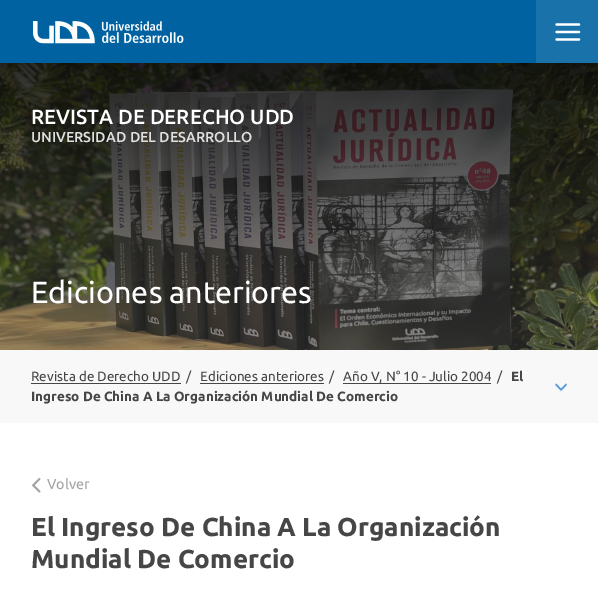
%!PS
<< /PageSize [598 600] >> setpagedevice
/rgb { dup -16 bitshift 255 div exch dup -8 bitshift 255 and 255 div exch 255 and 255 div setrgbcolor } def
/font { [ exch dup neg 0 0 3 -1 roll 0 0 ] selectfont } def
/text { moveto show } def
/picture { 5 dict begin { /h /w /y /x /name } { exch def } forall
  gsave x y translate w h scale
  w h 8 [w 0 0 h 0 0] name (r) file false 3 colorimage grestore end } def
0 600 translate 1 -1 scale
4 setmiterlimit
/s1 { /Ubuntu-Medium 20.5 font 16#FFFFFF rgb } def
/s2 { /Ubuntu-Medium 14.4 font 16#E0E0DF rgb } def
/s3 { /Ubuntu-Regular 30.5 font 16#FFFFFF rgb } def
/s4 { /Ubuntu-Regular 13.45 font 16#464646 rgb } def
/s5 { /Ubuntu-Bold 13.45 font 16#464646 rgb } def
/s6 { /Ubuntu-Regular 14.4 font 16#A3A3A3 rgb } def
/s7 { /Ubuntu-Bold 26 font 16#464646 rgb } def
16#FFFFFF rgb
0 0 598 600 rectfill
16#0062A1 rgb
0 0 536 63 rectfill
(pic1.raw) 33 21 151 23 picture
16#1A72AA rgb
536 0 62 63 rectfill
(pic2.raw) 555 23 26 18 picture
(pic3.raw) 0 63 598 287 picture
s1
(REVISTA DE DERECHO UDD) 31 124 text
s2
(UNIVERSIDAD DEL DESARROLLO) 31 142 text
s3
(Ediciones anteriores) 31 303 text
16#F8F8F8 rgb
0 350 598 73 rectfill
s4
(Revista de Derecho UDD) 31 381 text
31 383 150 1 rectfill
(Ediciones anteriores) 200 381 text
200 383 124 1 rectfill
(/) 329 381 text
343 383 148 1 rectfill
(Año V, N° 10 - Julio 2004) 343 381 text
(/) 497 381 text
s5
(El) 511 381 text
(Ingreso De China A La Organización Mundial De Comercio) 31 401 text
s4
(/) 186 381 text
(pic4.raw) 555 383 12 9 picture
(pic5.raw) 32 478 9 15 picture
s6
(Volver) 47 489 text
s7
(El Ingreso De China A La Organización) 31 536 text
(Mundial De Comercio) 31 568 text
showpage
